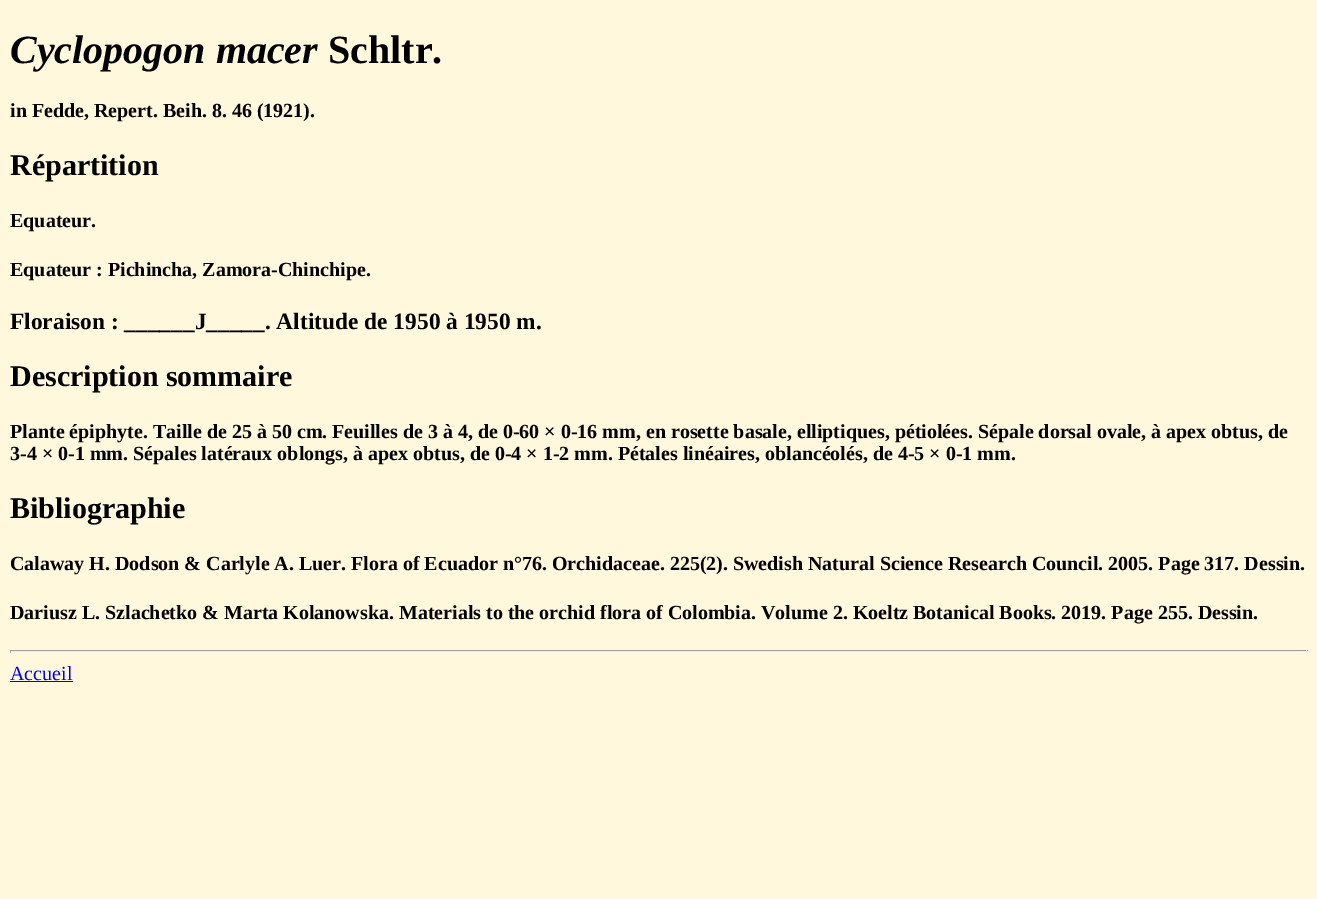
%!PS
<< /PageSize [1317 899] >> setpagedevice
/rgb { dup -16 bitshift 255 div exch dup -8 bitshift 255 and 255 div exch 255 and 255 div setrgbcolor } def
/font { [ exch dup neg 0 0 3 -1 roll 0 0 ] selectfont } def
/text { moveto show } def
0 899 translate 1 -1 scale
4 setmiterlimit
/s1 { /LiberationSerif-BoldItalic 40 font 16#000000 rgb } def
/s2 { /LiberationSerif-Bold 40 font 16#000000 rgb } def
/s3 { /LiberationSerif-Bold 20 font 16#000000 rgb } def
/s4 { /LiberationSerif-Bold 30 font 16#000000 rgb } def
/s5 { /LiberationSerif-Bold 23.4 font 16#000000 rgb } def
/s6 { /LiberationSerif-Regular 20 font 16#0000EE rgb } def
16#FFF8DC rgb
0 0 1317 899 rectfill
s1
(Cyclopogon macer) 10 63 text
s2
(Schltr.) 328 63 text
s3
(in Fedde, Repert. Beih. 8. 46 \(1921\).) 10 117 text
s4
(Répartition) 10 175 text
s3
(Equateur.) 10 227 text
(Equateur : Pichincha, Zamora-Chinchipe.) 10 276 text
s5
(Floraison : ______J_____. Altitude de 1950 à 1950 m.) 10 329 text
s4
(Description sommaire) 10 386 text
s3
(Plante épiphyte. Taille de 25 à 50 cm. Feuilles de 3 à 4, de 0-60 × 0-16 mm, en rosette basale, elliptiques, pétiolées. Sépale dorsal ovale, à apex obtus, de) 10 438 text
(3-4 × 0-1 mm. Sépales latéraux oblongs, à apex obtus, de 0-4 × 1-2 mm. Pétales linéaires, oblancéolés, de 4-5 × 0-1 mm.) 10 460 text
s4
(Bibliographie) 10 518 text
s3
(Calaway H. Dodson & Carlyle A. Luer. Flora of Ecuador n°76. Orchidaceae. 225\(2\). Swedish Natural Science Research Council. 2005. Page 317. Dessin.) 10 570 text
(Dariusz L. Szlachetko & Marta Kolanowska. Materials to the orchid flora of Colombia. Volume 2. Koeltz Botanical Books. 2019. Page 255. Dessin.) 10 619 text
16#9F9F9F rgb
10 650 1298 1 rectfill
16#EEEEEE rgb
1306 650 1 3 rectfill
10 651 1298 1 rectfill
16#9F9F9F rgb
10 650 1 3 rectfill
s6
(Accueil) 10 680 text
10 681 63 1 rectfill
showpage
